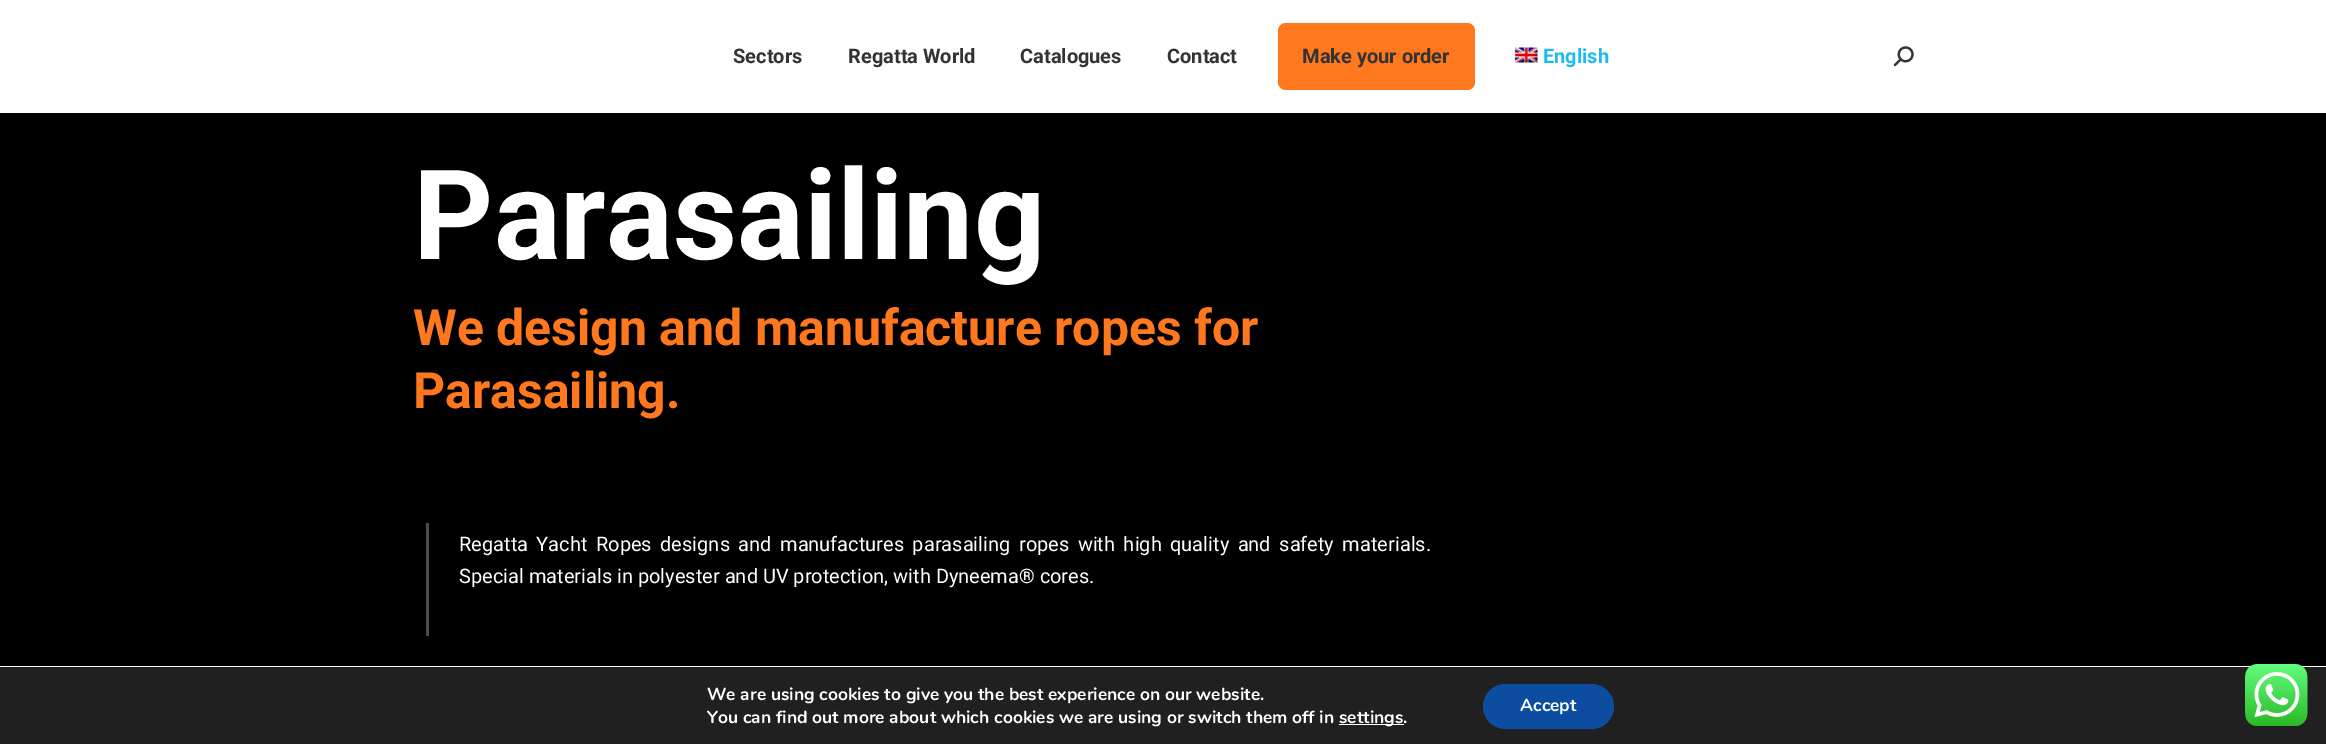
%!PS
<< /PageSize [2326 744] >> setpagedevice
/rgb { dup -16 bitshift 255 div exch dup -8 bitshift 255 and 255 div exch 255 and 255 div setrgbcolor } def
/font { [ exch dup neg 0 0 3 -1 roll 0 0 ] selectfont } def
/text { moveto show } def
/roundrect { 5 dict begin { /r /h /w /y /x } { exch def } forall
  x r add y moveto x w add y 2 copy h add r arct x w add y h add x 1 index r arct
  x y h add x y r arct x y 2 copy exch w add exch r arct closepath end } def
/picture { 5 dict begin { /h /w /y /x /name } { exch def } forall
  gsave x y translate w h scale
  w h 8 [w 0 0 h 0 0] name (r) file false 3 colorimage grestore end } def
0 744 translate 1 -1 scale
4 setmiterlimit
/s1 { /Roboto-Bold 20 font 16#333333 rgb } def
/s2 { /Roboto-Bold 20 font 16#1EBBF0 rgb } def
/s3 { /Roboto-Bold 125 font 16#FFFFFF rgb } def
/s4 { /Roboto-Bold 50 font 16#FF781E rgb } def
/s5 { /Roboto-Regular 20 font 16#FFFFFF rgb } def
/s6 { /Nunito-Bold 17.5 font 16#FFFFFF rgb } def
16#000000 rgb
0 0 2326 744 rectfill
16#FFFFFF rgb
0 0 2326 113 rectfill
s1
(Sectors) 733 63 text
(Regatta World) 848 63 text
(Catalogues) 1020 63 text
(Contact) 1167 63 text
16#FF781E rgb
1278 23 197 67 8 roundrect fill
s1
(Make your order) 1302 63 text
(pic1.raw) 1514 47 24 16 picture
s2
(English) 1543 63 text
(pic2.raw) 1893 46 21 21 picture
s3
(Parasailing) 413 259 text
s4
(We design and manufacture ropes for) 413 345 text
(Parasailing.) 413 408 text
16#4D4D4D rgb
426 523 3 113 rectfill
/Roboto-Regular 20 font
16#FFFFFF rgb
459 551 moveto 3.5 0 32 (Regatta Yacht Ropes designs and manufactures parasailing ropes with high quality and safety materials.) widthshow
(Special materials in polyester and UV protection, with Dyneema® cores.) 459 583 text
16#202020 rgb
0 667 2326 77 rectfill
16#FFFFFF rgb
0 666 2326 1 rectfill
s6
(We are using cookies to give you the best experience on our website.) 707 700 text
(You can find out more about which cookies we are using or switch them off in) 707 723 text
1339 724 65 1 rectfill
(settings.) 1339 723 text
16#0C4DA2 rgb
1483 684 131 45 22.5 roundrect fill
s6
(Accept) 1520 711 text
(pic3.raw) 2245 664 63 62 picture
showpage
